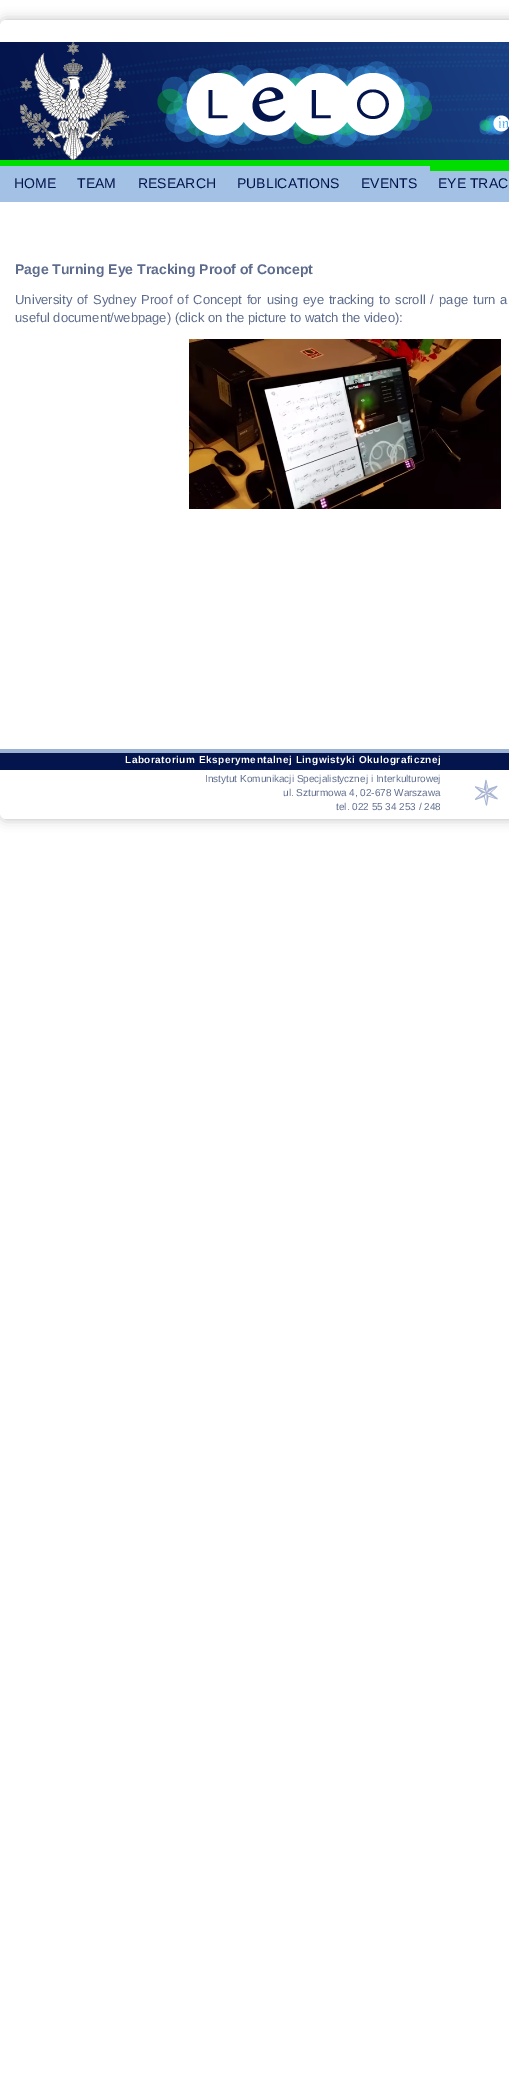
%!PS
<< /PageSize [509 2073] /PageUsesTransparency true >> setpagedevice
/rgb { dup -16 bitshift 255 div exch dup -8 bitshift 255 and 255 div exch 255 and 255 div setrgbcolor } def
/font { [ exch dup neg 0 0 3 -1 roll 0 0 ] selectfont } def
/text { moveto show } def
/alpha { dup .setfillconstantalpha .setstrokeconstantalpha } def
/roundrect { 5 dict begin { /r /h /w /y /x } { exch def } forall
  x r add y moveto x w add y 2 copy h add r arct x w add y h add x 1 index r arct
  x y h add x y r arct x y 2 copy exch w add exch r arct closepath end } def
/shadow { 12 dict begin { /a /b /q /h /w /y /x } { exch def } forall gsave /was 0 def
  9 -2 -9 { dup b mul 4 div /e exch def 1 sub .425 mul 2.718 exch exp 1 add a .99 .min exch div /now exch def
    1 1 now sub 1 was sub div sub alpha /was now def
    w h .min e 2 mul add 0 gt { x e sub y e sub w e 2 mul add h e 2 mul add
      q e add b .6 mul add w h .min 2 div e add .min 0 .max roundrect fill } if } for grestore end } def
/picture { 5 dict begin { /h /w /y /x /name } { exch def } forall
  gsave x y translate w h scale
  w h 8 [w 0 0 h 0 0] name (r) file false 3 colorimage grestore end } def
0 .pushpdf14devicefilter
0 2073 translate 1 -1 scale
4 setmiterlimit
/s1 { /LiberationSans-Regular 14 font 16#04154D rgb } def
/s2 { /LiberationSans-Bold 14 font 16#5D6C8C rgb } def
/s3 { /LiberationSans-Regular 13 font 16#5D6C8C rgb } def
/s4 { /LiberationSans-Regular 10 font 16#5D6C8C rgb } def
16#FFFFFF rgb
0 0 509 2073 rectfill
16#BBBBBB rgb
0 20 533 799 6 6 1 shadow
16#FFFFFF rgb
0 20 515 799 6 roundrect fill
(pic1.raw) 0 42 509 124 picture
(pic2.raw) 20 42 109 118 picture
16#A3C0E5 rgb
0 166 509 36 rectfill
s1
(HOME) 14 188 text
(TEAM) 77 188 text
(RESEARCH) 138 188 text
(PUBLICATIONS) 237 188 text
(EVENTS) 361 188 text
16#00DE00 rgb
430 166 79 5 rectfill
s1
(EYE TRAC) 438 188 text
s2
(Page Turning Eye Tracking Proof of Concept) 15 274 text
/LiberationSans-Regular 13 font
15 304 moveto 1.4 0 32 (University of Sydney Proof of Concept for using eye tracking to scroll / page turn a) widthshow
(useful document/webpage\) \(click on the picture to watch the video\):) 15 322 text
(pic3.raw) 189 339 312 170 picture
16#04154D rgb
0 753 509 17 rectfill
16#9DB3D3 rgb
0 749 509 4 rectfill
/LiberationSans-Bold 10 font
16#FFFFFF rgb
125 763 moveto 0.5 0 (Laboratorium Eksperymentalnej Lingwistyki Okulograficznej) ashow
s4
(Instytut Komunikacji Specjalistycznej i Interkulturowej) 205 782 text
(ul. Szturmowa 4, 02-678 Warszawa) 283 796 text
(tel. 022 55 34 253 / 248) 336 810 text
(pic4.raw) 475 779 23 27 picture
.poppdf14devicefilter showpage
